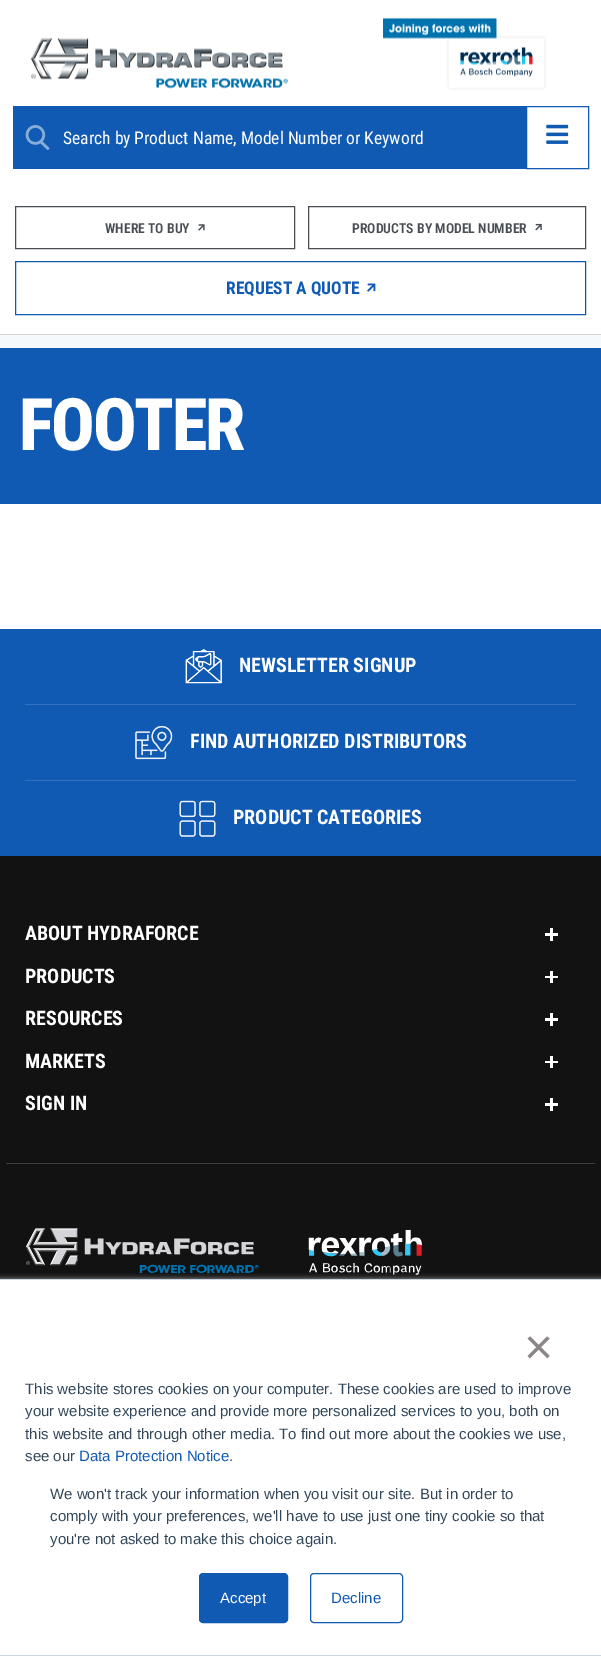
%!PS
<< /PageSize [601 1656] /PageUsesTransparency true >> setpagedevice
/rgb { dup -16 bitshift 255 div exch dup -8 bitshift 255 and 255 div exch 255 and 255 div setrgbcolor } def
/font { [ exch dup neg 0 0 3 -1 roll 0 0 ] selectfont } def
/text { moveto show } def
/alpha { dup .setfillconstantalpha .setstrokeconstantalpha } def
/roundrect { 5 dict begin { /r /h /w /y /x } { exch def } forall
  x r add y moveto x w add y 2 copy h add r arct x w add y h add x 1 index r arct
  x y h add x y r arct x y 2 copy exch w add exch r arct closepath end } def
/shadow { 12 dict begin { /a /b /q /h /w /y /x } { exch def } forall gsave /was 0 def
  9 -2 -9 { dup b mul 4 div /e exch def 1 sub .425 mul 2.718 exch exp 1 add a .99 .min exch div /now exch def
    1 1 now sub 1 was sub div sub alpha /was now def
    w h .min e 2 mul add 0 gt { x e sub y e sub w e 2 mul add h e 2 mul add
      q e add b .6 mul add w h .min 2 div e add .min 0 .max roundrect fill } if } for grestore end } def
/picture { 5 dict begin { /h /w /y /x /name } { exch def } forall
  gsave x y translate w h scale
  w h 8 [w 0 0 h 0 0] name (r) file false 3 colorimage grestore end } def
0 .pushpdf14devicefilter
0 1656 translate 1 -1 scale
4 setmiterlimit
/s1 { /RobotoCondensed-Regular 17.5 font 16#FFFFFF rgb } def
/s2 { /RobotoCondensed-SemiBold 13.75 font 16#494E54 rgb } def
/s3 { /RobotoCondensed-Bold 17.5 font 16#105AB3 rgb } def
/s4 { /RobotoCondensed-Bold 20 font 16#FFFFFF rgb } def
/s5 { /LiberationSans-Regular 50 font 16#8B8589 rgb } def
/s6 { /LiberationSans-Regular 15 font 16#33475B rgb } def
/s7 { /LiberationSans-Regular 15 font 16#105AB3 rgb } def
/s8 { /LiberationSans-Regular 15 font 16#FFFFFF rgb } def
16#FFFFFF rgb
0 0 601 1656 rectfill
(pic1.raw) 31 17 515 73 picture
16#105AB3 rgb
13 106 513 63 rectfill
(pic2.raw) 25 125 25 25 picture
s1
(Search by Product Name, Model Number or Keyword) 63 144 text
16#105AB3 rgb
526.5 106.5 62 62 rectstroke
(pic3.raw) 546 124 23 20 picture
16#D3D3D3 rgb
0 334 601 1 rectfill
16#494E54 rgb
15.5 206.5 279 42 rectstroke
s2
(WHERE TO BUY) 105 233 text
(pic4.raw) 198 224 7 7 picture
308.5 206.5 277 42 rectstroke
(PRODUCTS BY MODEL NUMBER) 352 233 text
(pic5.raw) 535 223 7 8 picture
16#105AB3 rgb
15.5 261.5 570 53 rectstroke
s3
(REQUEST A QUOTE) 226 294 text
(pic6.raw) 367 283 9 9 picture
16#F6F9FC rgb
0 335 601 13 rectfill
16#105AB3 rgb
0 348 601 156 rectfill
/RobotoCondensed-ExtraBold 72.5 font
16#FFFFFF rgb
19 450 moveto -2.25 0 (FOOTER) ashow
16#121212 rgb
0 856 601 423 rectfill
16#105AB3 rgb
0 629 601 227 rectfill
16#3271BE rgb
25 704 551 1 rectfill
(pic7.raw) 185 649 37 35 picture
s4
(NEWSLETTER SIGNUP) 239 672 text
16#3271BE rgb
25 780 551 1 rectfill
(pic8.raw) 135 725 38 35 picture
s4
(FIND AUTHORIZED DISTRIBUTORS) 190 748 text
(pic9.raw) 179 800 37 37 picture
(PRODUCT CATEGORIES) 233 824 text
(ABOUT HYDRAFORCE) 25 940 text
550 928 3 13 rectfill
545 933 13 3 rectfill
(PRODUCTS) 25 983 text
550 971 3 12 rectfill
545 976 13 2 rectfill
(RESOURCES) 25 1025 text
550 1013 3 13 rectfill
545 1018 13 3 rectfill
(MARKETS) 25 1068 text
550 1056 3 12 rectfill
545 1061 13 2 rectfill
(SIGN IN) 25 1110 text
550 1098 3 13 rectfill
545 1103 13 3 rectfill
16#3D3D3D rgb
6 1163 589 1 rectfill
(pic10.raw) 26 1228 396 47 picture
16#EAF0F6 rgb
0 1280 601 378 0 3 1 shadow
16#FFFFFF rgb
0 1280 601 375 rectfill
16#CBD6E2 rgb
0 1279 601 1 rectfill
0 1655 601 1 rectfill
s5
(×) 524 1364 text
s6
(This website stores cookies on your computer. These cookies are used to improve) 25 1394 text
(your website experience and provide more personalized services to you, both on) 25 1416 text
(this website and through other media. To find out more about the cookies we use,) 25 1439 text
(see our) 25 1461 text
s7
(Data Protection Notice) 79 1461 text
s6
(.) 229 1461 text
(We won't track your information when you visit our site. But in order to) 50 1499 text
(comply with your preferences, we'll have to use just one tiny cookie so that) 50 1521 text
(you're not asked to make this choice again.) 50 1544 text
16#105AB3 rgb
199.5 1573.5 88 49 3.5 roundrect gsave fill grestore
stroke
s8
(Accept) 220 1603 text
16#105AB3 rgb
310.5 1573.5 92 49 3.5 roundrect stroke
(Decline) 331 1603 text
.poppdf14devicefilter showpage
